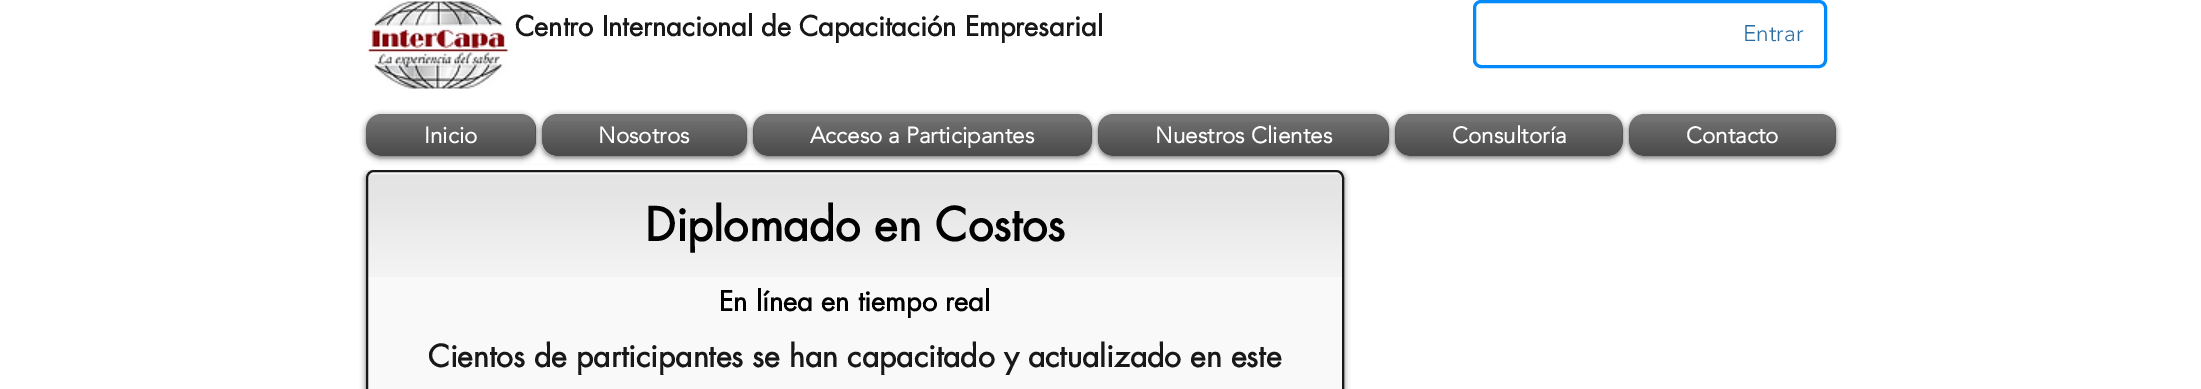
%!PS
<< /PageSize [2201 389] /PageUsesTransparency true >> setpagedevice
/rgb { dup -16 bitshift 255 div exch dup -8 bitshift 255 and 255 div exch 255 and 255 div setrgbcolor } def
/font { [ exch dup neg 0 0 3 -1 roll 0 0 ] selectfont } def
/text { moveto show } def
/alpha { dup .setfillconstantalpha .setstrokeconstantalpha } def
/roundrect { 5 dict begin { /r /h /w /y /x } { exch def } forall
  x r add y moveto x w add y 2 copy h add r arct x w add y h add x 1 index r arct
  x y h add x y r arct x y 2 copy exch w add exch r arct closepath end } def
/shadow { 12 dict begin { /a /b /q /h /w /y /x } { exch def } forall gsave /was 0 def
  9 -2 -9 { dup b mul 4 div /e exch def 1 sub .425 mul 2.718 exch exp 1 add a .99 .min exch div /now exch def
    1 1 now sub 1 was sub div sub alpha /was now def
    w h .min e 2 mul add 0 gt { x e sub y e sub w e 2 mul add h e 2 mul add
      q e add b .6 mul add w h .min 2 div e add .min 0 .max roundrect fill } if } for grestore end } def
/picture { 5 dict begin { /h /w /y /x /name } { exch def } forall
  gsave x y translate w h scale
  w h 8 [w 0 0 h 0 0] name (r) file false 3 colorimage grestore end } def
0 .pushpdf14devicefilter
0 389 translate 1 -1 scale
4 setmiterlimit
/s1 { /futura-Bold 27 font 16#181818 rgb } def
/s2 { /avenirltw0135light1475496-Light 22.5 font 16#2B6CA3 rgb } def
/s3 { /avenirltw0135light1475496-Bold 22.5 font 16#FFFFFF rgb } def
/s4 { /futura-Bold 45 font 16#000000 rgb } def
/s5 { /futura-Bold 27 font 16#000000 rgb } def
/s6 { /futura-Bold 30 font 16#181818 rgb } def
16#FFFFFF rgb
0 0 2201 389 rectfill
(pic1.raw) 367 1 142 88 picture
s1
(Centro Internacional de Capacitación Empresarial) 515 36 text
16#008AFC rgb
3 setlinewidth
1474.5 1.5 351 65 6.5 roundrect stroke
s2
(Entrar) 1743 41 text
16#000000 rgb
366 171 978 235 8 3 0.6 shadow
16#FFFFFF rgb
364 165 982 5 rectfill
16#000000 rgb
366 116 170 42 15 3 0.6 shadow
16#525252 rgb
366 114 170 42 15 roundrect fill
(pic2.raw) 366 114 169 42 picture
(pic3.raw) 366 122 169 34 picture
s3
(Inicio) 424 143 text
16#000000 rgb
542 116 205 42 15 3 0.6 shadow
16#525252 rgb
542 114 205 42 15 roundrect fill
(pic4.raw) 542 114 205 42 picture
(pic5.raw) 542 121 205 35 picture
s3
(Nosotros) 598 143 text
16#000000 rgb
753 116 339 42 15 3 0.6 shadow
16#525252 rgb
753 114 339 42 15 roundrect fill
(pic6.raw) 753 114 339 42 picture
(pic7.raw) 753 122 339 34 picture
s3
(Acceso a Participantes) 810 143 text
16#000000 rgb
1098 116 291 42 15 3 0.6 shadow
16#525252 rgb
1098 114 291 42 15 roundrect fill
(pic8.raw) 1098 114 291 42 picture
(pic9.raw) 1098 122 291 34 picture
s3
(Nuestros Clientes) 1155 143 text
16#000000 rgb
1395 116 228 42 15 3 0.6 shadow
16#525252 rgb
1395 114 228 42 15 roundrect fill
(pic10.raw) 1395 114 228 42 picture
(pic11.raw) 1395 122 228 34 picture
s3
(Consultoría) 1452 143 text
16#000000 rgb
1629 116 207 42 15 3 0.6 shadow
16#525252 rgb
1629 114 207 42 15 roundrect fill
(pic12.raw) 1629 114 207 42 picture
(pic13.raw) 1629 122 207 34 picture
s3
(Contacto) 1686 143 text
16#FAF9F9 rgb
366 170 978 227 8 roundrect fill
(pic14.raw) 366 174 978 103 picture
16#181818 rgb
2 setlinewidth
367 171 976 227 7 roundrect stroke
s4
(Diplomado en Costos) 645 241 text
s5
(En línea en tiempo real) 719 311 text
s6
(Cientos de participantes se han capacitado y actualizado en este) 428 367 text
.poppdf14devicefilter showpage
